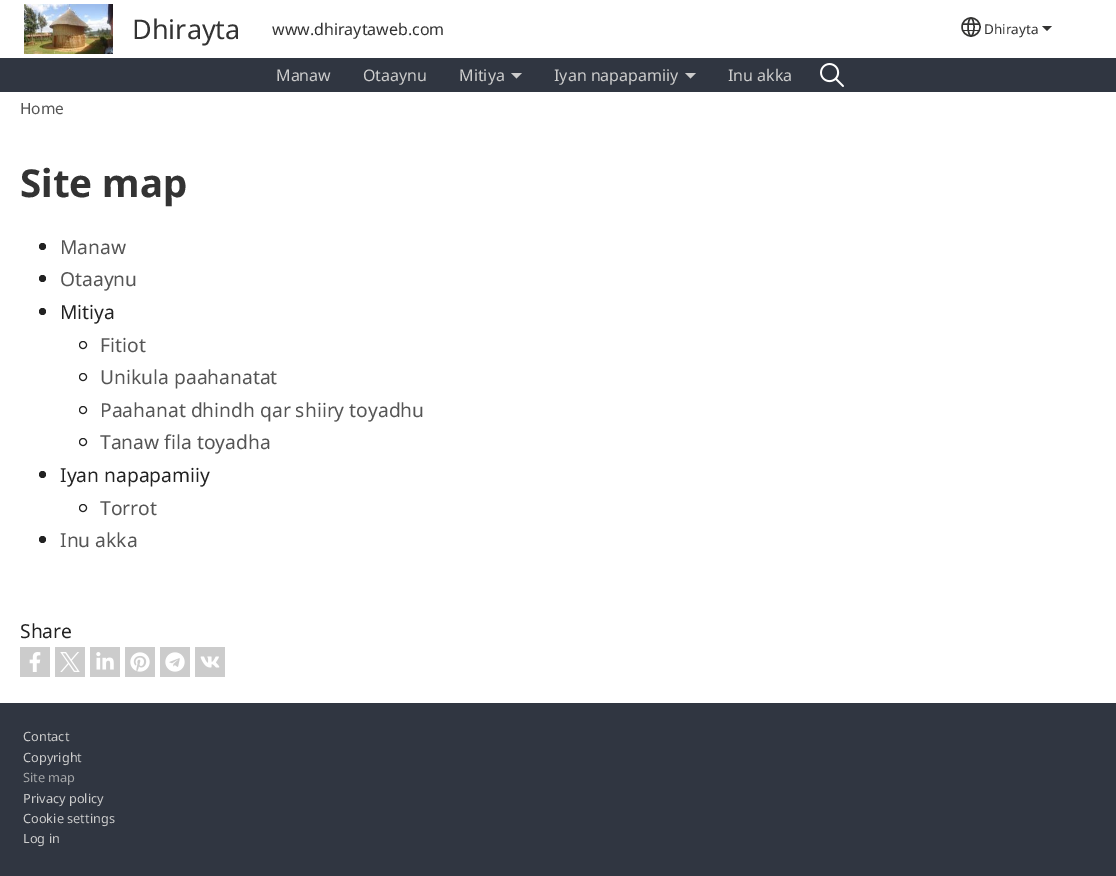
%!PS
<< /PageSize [1116 876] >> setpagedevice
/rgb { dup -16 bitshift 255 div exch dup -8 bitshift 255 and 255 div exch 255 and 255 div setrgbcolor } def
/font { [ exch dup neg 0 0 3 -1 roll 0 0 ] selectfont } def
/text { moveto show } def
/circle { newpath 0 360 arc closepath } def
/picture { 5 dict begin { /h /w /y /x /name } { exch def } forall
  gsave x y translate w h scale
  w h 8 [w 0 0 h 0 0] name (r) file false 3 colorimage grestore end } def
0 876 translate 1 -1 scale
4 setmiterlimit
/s1 { /NotoSans-Regular 27 font 16#333333 rgb } def
/s2 { /NotoSans-Regular 16 font 16#333333 rgb } def
/s3 { /NotoSans-Regular 13.5 font 16#333333 rgb } def
/s4 { /NotoSans-Regular 16 font 16#CCCCCC rgb } def
/s5 { /NotoSans-Regular 15.5 font 16#555555 rgb } def
/s6 { /NotoSans-Bold 38.5 font 16#333333 rgb } def
/s7 { /NotoSans-Regular 19.25 font 16#555555 rgb } def
/s8 { /NotoSans-Regular 19.25 font 16#222222 rgb } def
/s9 { /NotoSans-Regular 12.75 font 16#CCCCCC rgb } def
/s10 { /NotoSans-Regular 12.75 font 16#A5A7A9 rgb } def
16#FFFFFF rgb
0 0 1116 876 rectfill
(pic1.raw) 24 4 89 50 picture
s1
(Dhirayta) 132 39 text
s2
(www.dhiraytaweb.com) 272 35 text
16#333332 rgb
1.4 setlinewidth
971 27 9 circle stroke
971 18 moveto 972.5 18 974 22 974 27 curveto 974 32 972.5 36 971 36 curveto 969.5 36 968 32 968 27 curveto 968 22 969.5 18 971 18 curveto closepath stroke
962 24 moveto 979.5 24 lineto stroke
962 30 18 1 rectfill
s3
(Dhirayta) 984 34 text
16#333332 rgb
1042 26 moveto 1052 26 lineto 1047 31 lineto closepath fill
16#303641 rgb
0 58 1116 34 rectfill
s4
(Manaw) 276 81 text
(Otaaynu) 363 81 text
(Mitiya) 459 81 text
511 73 moveto 522 73 lineto 516.5 78.5 lineto closepath fill
(Iyan napapamiiy) 554 81 text
685 73 moveto 696 73 lineto 690.5 78.5 lineto closepath fill
(Inu akka) 728 81 text
(pic2.raw) 820 63 24 24 picture
s5
(Home) 20 114 text
s6
(Site map) 20 197 text
16#222222 rgb
42.5 246.5 3.5 circle fill
s7
(Manaw) 60 254 text
16#222222 rgb
42.5 278.5 3.5 circle fill
s7
(Otaaynu) 60 286 text
16#222222 rgb
42.5 311.5 3.5 circle fill
(Mitiya) 60 319 text
1 setlinewidth
83 345 3.5 circle stroke
s7
(Fitiot) 100 352 text
16#222222 rgb
83 377 3.5 circle stroke
s7
(Unikula paahanatat) 100 384 text
16#222222 rgb
83 410 3.5 circle stroke
s7
(Paahanat dhindh qar shiiry toyadhu) 100 417 text
16#222222 rgb
83 442 3.5 circle stroke
s7
(Tanaw fila toyadha) 100 449 text
16#222222 rgb
42.5 474.5 3.5 circle fill
(Iyan napapamiiy) 60 482 text
83 508 3.5 circle stroke
s7
(Torrot) 100 515 text
16#222222 rgb
42.5 539.5 3.5 circle fill
s7
(Inu akka) 60 547 text
s8
(Share) 20 638 text
16#CCCCCC rgb
20 647 30 30 rectfill
(pic3.raw) 29 652 12 20 picture
55 647 30 30 rectfill
(pic4.raw) 60 652 20 20 picture
90 647 30 30 rectfill
(pic5.raw) 96 652 18 18 picture
125 647 30 30 rectfill
(pic6.raw) 130 652 20 20 picture
160 647 30 30 rectfill
(pic7.raw) 165 652 20 20 picture
195 647 30 30 rectfill
(pic8.raw) 200 656 20 12 picture
16#303641 rgb
0 703 1116 173 rectfill
s9
(Contact) 23 741 text
(Copyright) 23 762 text
s10
(Site map) 23 782 text
s9
(Privacy policy) 23 803 text
(Cookie settings) 23 823 text
(Log in) 23 843 text
showpage
